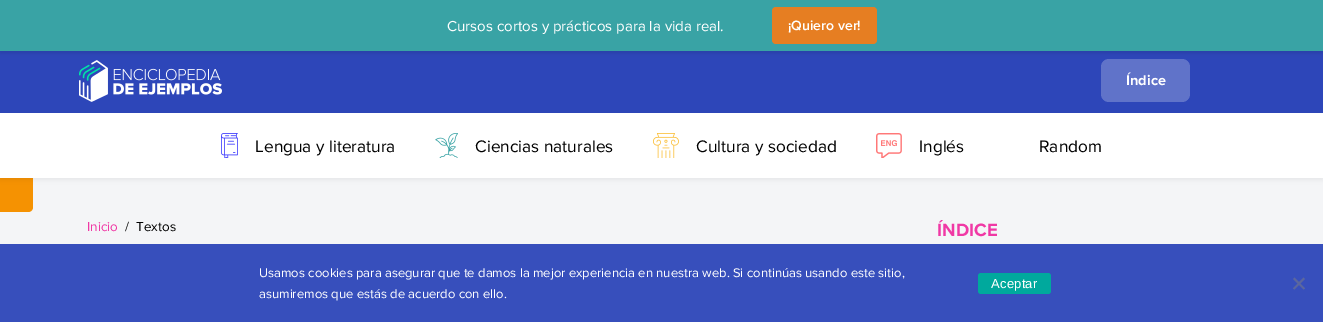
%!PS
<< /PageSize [1323 322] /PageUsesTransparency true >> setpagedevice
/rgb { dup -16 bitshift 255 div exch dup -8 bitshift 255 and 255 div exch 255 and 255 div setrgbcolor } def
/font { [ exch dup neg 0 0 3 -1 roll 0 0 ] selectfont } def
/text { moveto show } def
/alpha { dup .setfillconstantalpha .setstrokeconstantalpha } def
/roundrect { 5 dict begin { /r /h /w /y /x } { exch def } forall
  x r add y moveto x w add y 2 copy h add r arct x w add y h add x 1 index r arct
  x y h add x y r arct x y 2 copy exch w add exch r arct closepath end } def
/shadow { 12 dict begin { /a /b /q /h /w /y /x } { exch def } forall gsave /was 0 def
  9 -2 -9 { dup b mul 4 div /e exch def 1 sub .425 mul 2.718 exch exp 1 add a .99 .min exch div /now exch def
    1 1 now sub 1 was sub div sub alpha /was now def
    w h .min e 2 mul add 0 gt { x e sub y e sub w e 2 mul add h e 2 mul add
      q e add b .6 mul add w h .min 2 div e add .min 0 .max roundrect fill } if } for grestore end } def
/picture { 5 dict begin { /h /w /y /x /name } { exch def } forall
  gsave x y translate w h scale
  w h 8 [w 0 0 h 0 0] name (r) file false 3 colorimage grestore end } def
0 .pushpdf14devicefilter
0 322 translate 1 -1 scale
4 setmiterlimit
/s1 { /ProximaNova-Regular 15 font 16#FFFFFF rgb } def
/s2 { /ProximaNova-SemiBold 14 font 16#FFFFFF rgb } def
/s3 { /ProximaNova-Bold 14.5 font 16#FFFFFF rgb } def
/s4 { /ProximaNova-Regular 17.25 font 16#000000 rgb } def
/s5 { /ProximaNova-Regular 13.5 font 16#F038A5 rgb } def
/s6 { /ProximaNova-Regular 13.5 font 16#000000 rgb } def
/s7 { /ProximaNova-Bold 18.5 font 16#F038A5 rgb } def
/s8 { /ProximaNova-Regular 13 font 16#FFFFFF rgb } def
16#F4F5F7 rgb
0 0 1323 322 rectfill
16#374FBC rgb
0 244 1323 78 rectfill
16#F59202 rgb
-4 212 moveto -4 110 lineto 28 110 lineto 31 110 33 112 33 115 curveto 33 207 lineto 33 210 31 212 28 212 curveto closepath fill
16#2D46B9 rgb
0 51 1323 62 rectfill
16#6073C9 rgb
1101 59 89 43 8 roundrect fill
16#000000 rgb
0 2 1323 51 0 2 0.1 shadow
16#39A3A5 rgb
0 0 1323 51 rectfill
s1
(Cursos cortos y prácticos para la vida real.) 447 31 text
16#E67E22 rgb
772 7 105 37 4 roundrect fill
s2
(¡Quiero ver!) 788 30 text
(pic1.raw) 79 60 143 42 picture
s3
(Índice) 1126 85 text
16#000000 rgb
0 115 1323 65 0 2.5 0.05 shadow
16#FFFFFF rgb
0 113 1323 65 rectfill
(pic2.raw) 221 133 17 25 picture
s4
(Lengua y literatura) 255 152 text
(pic3.raw) 435 133 23 25 picture
(Ciencias naturales) 475 152 text
(pic4.raw) 653 133 26 25 picture
(Cultura y sociedad) 696 152 text
(pic5.raw) 876 133 26 25 picture
(Inglés) 919 152 text
(Random) 1039 152 text
s5
(Inicio) 87 231 text
s6
(/) 125 231 text
(Textos) 136 231 text
s7
(ÍNDICE) 937 236 text
s8
(Usamos cookies para asegurar que te damos la mejor experiencia en nuestra web. Si continúas usando este sitio,) 259 277 text
(asumiremos que estás de acuerdo con ello.) 259 298 text
16#00A99D rgb
978 273 73 21 3 roundrect fill
/LiberationSans-Regular 13 font
16#FFFFFF rgb
991 288 moveto 0.25 0 (Aceptar) ashow
16#5B679E rgb
1303.5 277.5 moveto 1305 279 lineto 1294.5 289.5 lineto 1293 288.5 lineto closepath fill
1293 279 moveto 1294.5 277.5 lineto 1305 288.5 lineto 1303.5 289.5 lineto closepath fill
.poppdf14devicefilter showpage
